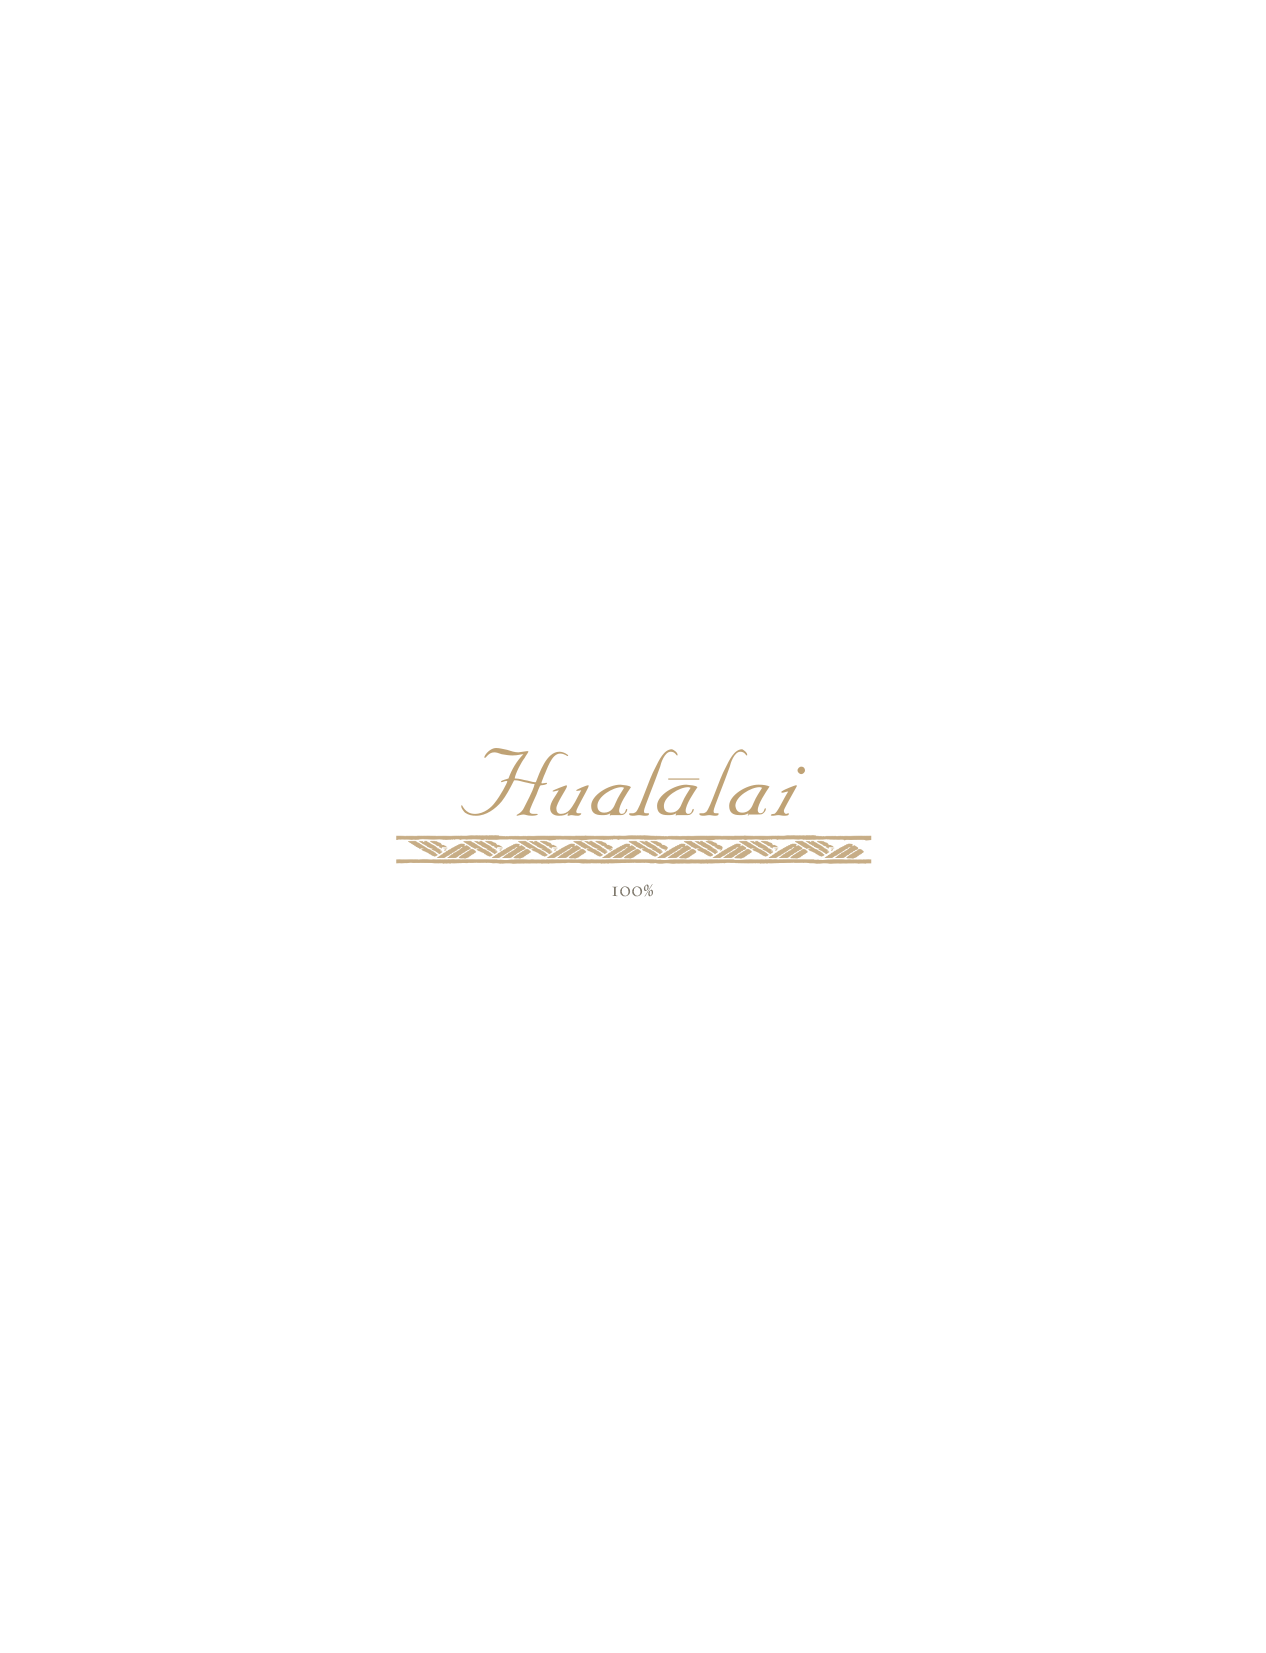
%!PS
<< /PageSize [1266 1653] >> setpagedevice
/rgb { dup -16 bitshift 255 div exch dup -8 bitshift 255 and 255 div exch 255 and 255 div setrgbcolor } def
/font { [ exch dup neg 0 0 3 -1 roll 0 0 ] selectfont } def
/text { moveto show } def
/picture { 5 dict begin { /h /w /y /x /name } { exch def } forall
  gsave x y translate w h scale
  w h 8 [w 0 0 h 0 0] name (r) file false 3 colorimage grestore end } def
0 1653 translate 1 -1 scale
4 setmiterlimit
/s1 { /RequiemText-Regular 20 font 16#807A6E rgb } def
16#FFFFFF rgb
0 0 1266 1653 rectfill
(pic1.raw) 461 748 344 68 picture
(pic2.raw) 396 835 476 29 picture
s1
(100%) 611 896 text
showpage
